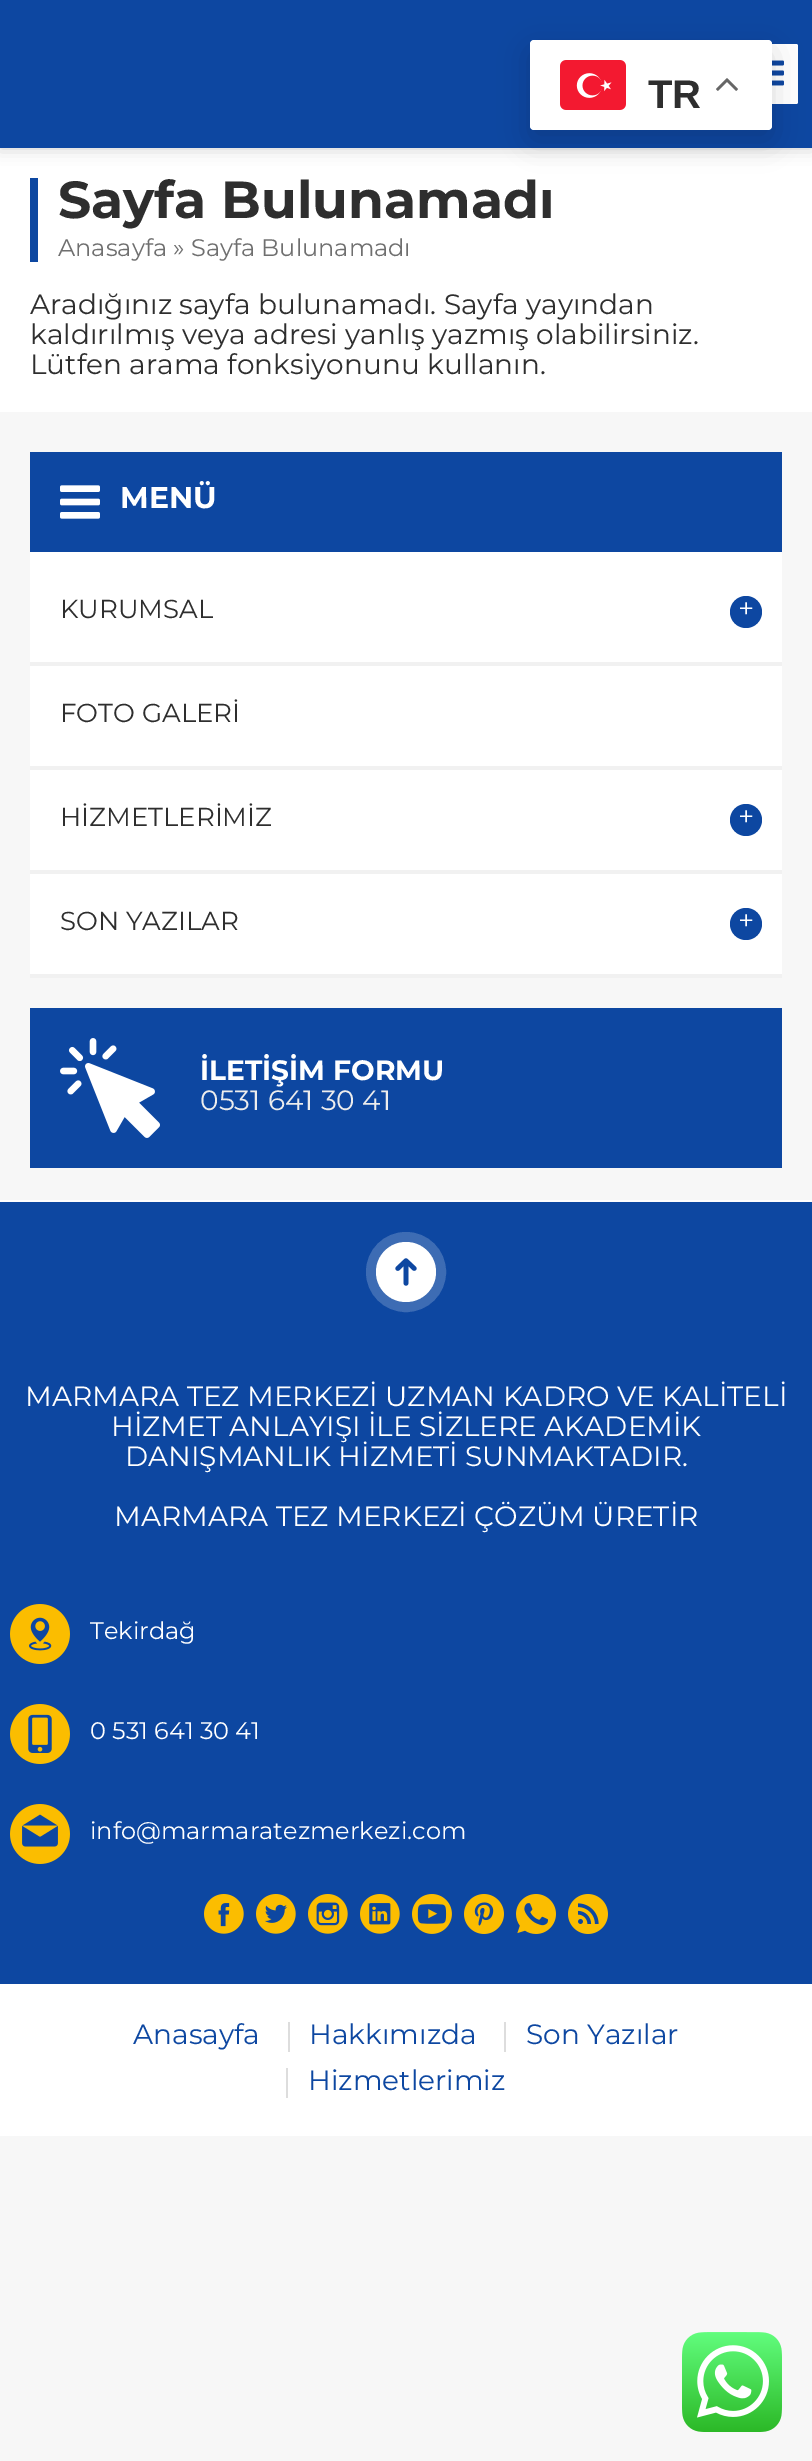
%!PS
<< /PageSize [812 2461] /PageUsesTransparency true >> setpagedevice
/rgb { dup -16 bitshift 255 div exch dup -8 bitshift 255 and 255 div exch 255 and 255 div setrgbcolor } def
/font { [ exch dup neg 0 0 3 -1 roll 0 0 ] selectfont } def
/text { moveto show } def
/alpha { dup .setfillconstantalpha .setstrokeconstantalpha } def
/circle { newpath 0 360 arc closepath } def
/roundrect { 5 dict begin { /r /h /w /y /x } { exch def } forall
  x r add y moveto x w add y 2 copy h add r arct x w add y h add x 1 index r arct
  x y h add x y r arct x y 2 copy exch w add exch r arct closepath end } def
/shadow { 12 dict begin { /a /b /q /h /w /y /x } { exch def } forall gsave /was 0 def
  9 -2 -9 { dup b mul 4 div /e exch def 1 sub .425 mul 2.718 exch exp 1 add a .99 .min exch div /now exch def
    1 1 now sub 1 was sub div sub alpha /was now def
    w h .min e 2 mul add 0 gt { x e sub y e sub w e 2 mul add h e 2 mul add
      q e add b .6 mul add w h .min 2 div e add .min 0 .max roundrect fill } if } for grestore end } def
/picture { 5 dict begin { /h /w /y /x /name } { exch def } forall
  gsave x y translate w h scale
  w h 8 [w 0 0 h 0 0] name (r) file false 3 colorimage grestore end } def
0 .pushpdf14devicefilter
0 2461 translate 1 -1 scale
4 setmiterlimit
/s1 { /LiberationSans-Bold 40 font 16#2E2E2E rgb } def
/s2 { /Montserrat-Bold 52 font 16#2E2E2E rgb } def
/s3 { /Montserrat-Regular 24 font 16#6F6F6F rgb } def
/s4 { /Montserrat-Regular 28 font 16#2E2E2E rgb } def
/s5 { /Montserrat-Bold 30 font 16#FFFFFF rgb } def
/s6 { /Montserrat-Regular 26 font 16#2E2E2E rgb } def
/s7 { /Montserrat-Regular 28 font 16#FFFFFF rgb } def
/s8 { /Montserrat-Bold 28 font 16#FFFFFF rgb } def
/s9 { /Montserrat-Regular 28 font 16#EDEDED rgb } def
/s10 { /Montserrat-Regular 24 font 16#FFFFFF rgb } def
/s11 { /Montserrat-Regular 28 font 16#0D47A1 rgb } def
16#F7F7F7 rgb
0 0 812 2461 rectfill
16#FFFFFF rgb
0 148 812 264 rectfill
16#000000 rgb
0 0 812 148 0 8 0.2 shadow
16#0D47A1 rgb
0 0 812 148 rectfill
16#FFFFFF rgb
738 44 60 60 2 roundrect fill
(pic1.raw) 772 60 12 26 picture
16#000000 rgb
530 50 242 90 4 15 0.15 shadow
16#FFFFFF rgb
530 40 242 90 4 roundrect fill
(pic2.raw) 560 60 66 50 picture
s1
(TR) 648 108 text
(pic3.raw) 716 78 22 13 picture
16#0D47A1 rgb
30 178 8 84 rectfill
s2
(Sayfa Bulunamadı) 58 218 text
s3
(Anasayfa » Sayfa Bulunamadı) 58 256 text
s4
(Aradığınız sayfa bulunamadı. Sayfa yayından) 30 314 text
(kaldırılmış veya adresi yanlış yazmış olabilirsiniz.) 30 344 text
(Lütfen arama fonksiyonunu kullanın.) 30 374 text
16#FFFFFF rgb
30 552 752 422 rectfill
16#0D47A1 rgb
30 452 752 100 rectfill
(pic4.raw) 60 485 40 34 picture
s5
(MENÜ) 120 508 text
16#F1F1F1 rgb
30 662 752 4 rectfill
s6
(KURUMSAL) 60 618 text
16#0D47A1 rgb
746 612 16 circle fill
s7
(+) 738 618 text
16#F1F1F1 rgb
30 766 752 4 rectfill
s6
(FOTO GALERİ) 60 722 text
16#F1F1F1 rgb
30 870 752 4 rectfill
s6
(HİZMETLERİMİZ) 60 826 text
16#0D47A1 rgb
746 820 16 circle fill
s7
(+) 738 826 text
16#F1F1F1 rgb
30 974 752 4 rectfill
s6
(SON YAZILAR) 60 930 text
16#0D47A1 rgb
746 924 16 circle fill
s7
(+) 738 930 text
16#0D47A1 rgb
30 1008 752 160 rectfill
(pic5.raw) 60 1038 100 100 picture
s8
(İLETİŞİM FORMU) 200 1080 text
s9
(0531 641 30 41) 200 1110 text
16#0D47A1 rgb
0 1202 812 782 rectfill
16#FFFFFF rgb
0 1200 812 2 rectfill
16#3D6CB4 rgb
10 setlinewidth
406 1272 35 circle stroke
16#FFFFFF rgb
406 1272 30 circle fill
(pic6.raw) 395 1258 22 28 picture
(MARMARA TEZ MERKEZİ UZMAN KADRO VE KALİTELİ) 25 1406 text
(HİZMET ANLAYIŞI İLE SİZLERE AKADEMİK) 111 1436 text
(DANIŞMANLIK HİZMETİ SUNMAKTADIR.) 125 1466 text
(MARMARA TEZ MERKEZİ ÇÖZÜM ÜRETİR) 114 1526 text
(pic7.raw) 10 1604 60 60 picture
s10
(Tekirdağ) 90 1639 text
(pic8.raw) 10 1704 60 60 picture
(0 531 641 30 41) 90 1739 text
(pic9.raw) 10 1804 60 60 picture
(info@marmaratezmerkezi.com) 90 1839 text
(pic10.raw) 204 1894 40 40 picture
(pic11.raw) 256 1894 40 40 picture
(pic12.raw) 308 1894 40 40 picture
(pic13.raw) 360 1894 40 40 picture
(pic14.raw) 412 1894 40 40 picture
(pic15.raw) 464 1894 40 40 picture
(pic16.raw) 516 1894 40 40 picture
(pic17.raw) 568 1894 40 40 picture
0 1984 812 152 rectfill
s11
(Anasayfa) 133 2044 text
16#DDDDDD rgb
288 2022 2 30 rectfill
s11
(Hakkımızda) 309 2044 text
16#DDDDDD rgb
504 2022 2 30 rectfill
s11
(Son Yazılar) 526 2044 text
16#DDDDDD rgb
286 2068 2 30 rectfill
s11
(Hizmetlerimiz) 308 2090 text
(pic18.raw) 682 2332 100 100 picture
.poppdf14devicefilter showpage
